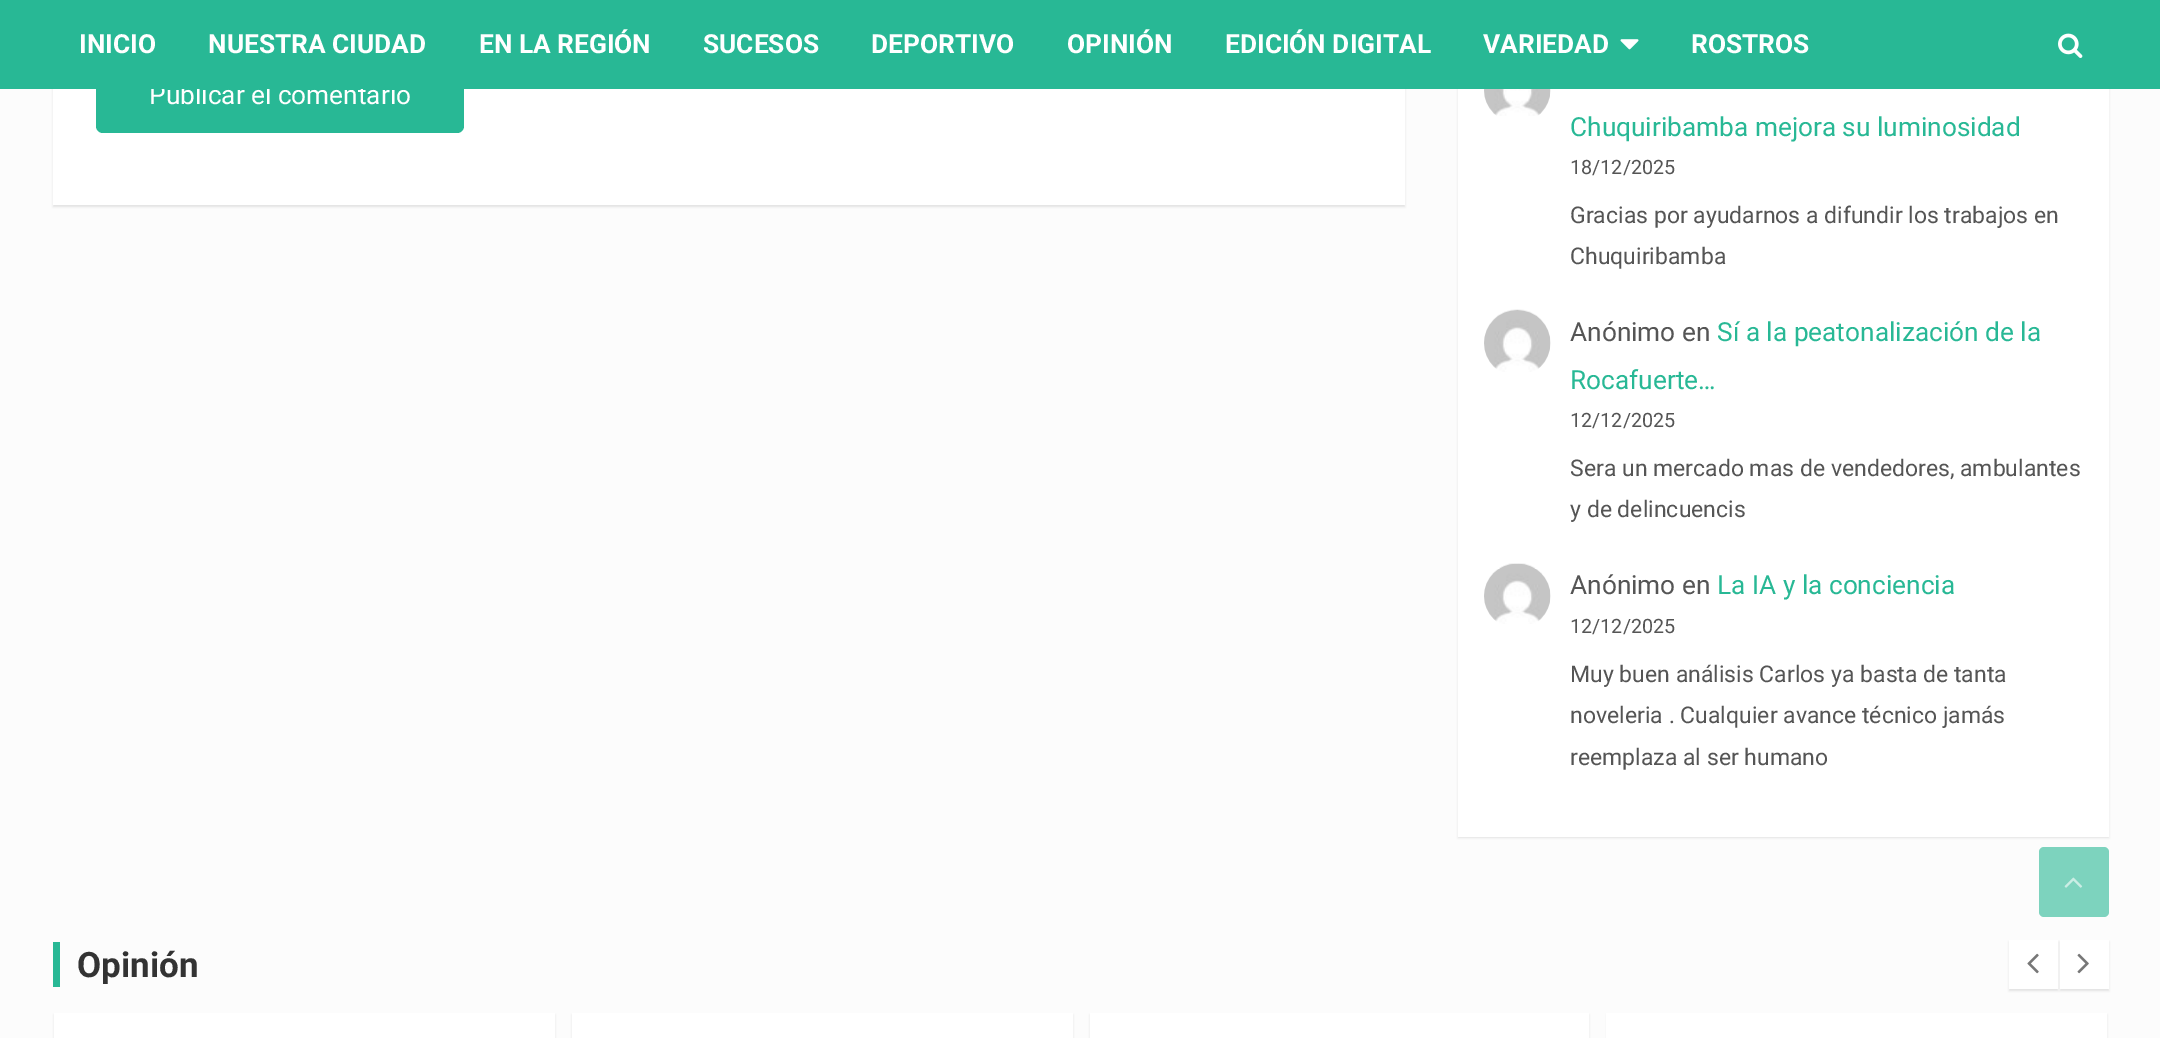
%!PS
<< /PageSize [2160 1038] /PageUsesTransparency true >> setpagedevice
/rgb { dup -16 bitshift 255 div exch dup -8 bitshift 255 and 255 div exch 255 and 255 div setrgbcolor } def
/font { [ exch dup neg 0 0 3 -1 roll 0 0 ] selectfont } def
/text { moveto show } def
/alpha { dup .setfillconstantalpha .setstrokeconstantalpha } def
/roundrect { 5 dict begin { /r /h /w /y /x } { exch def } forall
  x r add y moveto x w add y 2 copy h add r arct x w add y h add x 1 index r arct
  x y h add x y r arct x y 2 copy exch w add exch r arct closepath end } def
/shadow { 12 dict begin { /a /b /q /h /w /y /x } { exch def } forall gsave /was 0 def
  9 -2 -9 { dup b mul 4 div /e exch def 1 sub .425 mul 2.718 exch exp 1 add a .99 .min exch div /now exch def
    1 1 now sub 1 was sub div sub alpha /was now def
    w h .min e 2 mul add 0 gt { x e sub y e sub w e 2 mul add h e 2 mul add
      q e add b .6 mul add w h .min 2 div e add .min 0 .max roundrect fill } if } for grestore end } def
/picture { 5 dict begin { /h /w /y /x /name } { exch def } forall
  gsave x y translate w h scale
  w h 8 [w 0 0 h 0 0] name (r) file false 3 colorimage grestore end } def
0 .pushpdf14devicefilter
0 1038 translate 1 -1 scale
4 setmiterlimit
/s1 { /Roboto-Regular 26.25 font 16#FFFFFF rgb } def
/s2 { /Roboto-Bold 26.25 font 16#FFFFFF rgb } def
/s3 { /Roboto-Regular 26.25 font 16#28B895 rgb } def
/s4 { /Roboto-Regular 19.75 font 16#555555 rgb } def
/s5 { /Roboto-Regular 23 font 16#555555 rgb } def
/s6 { /Roboto-Regular 26.25 font 16#555555 rgb } def
/s7 { /Roboto-Bold 35 font 16#333333 rgb } def
16#FCFCFC rgb
0 0 2160 1038 rectfill
16#000000 rgb
53 -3 1352 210 0 1 0.1 shadow
16#FFFFFF rgb
53 89 1352 116 rectfill
16#28B895 rgb
96 61 368 72 7 roundrect fill
s1
(Publicar el comentario) 149 104 text
16#000000 rgb
1458 -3 651 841 0 1 0.1 shadow
16#28B895 rgb
0 0 2160 89 rectfill
s2
(INICIO) 79 53 text
(NUESTRA CIUDAD) 208 53 text
(EN LA REGIÓN) 479 53 text
(SUCESOS) 703 53 text
(DEPORTIVO) 871 53 text
(OPINIÓN) 1067 53 text
(EDICIÓN DIGITAL) 1225 53 text
(VARIEDAD) 1483 53 text
(pic1.raw) 1620 39 19 11 picture
(ROSTROS) 1691 53 text
(pic2.raw) 2058 33 25 25 picture
1458 89 651 748 rectfill
(pic3.raw) 1484 89 67 27 picture
s3
(Chuquiribamba mejora su luminosidad) 1570 136 text
s4
(18/12/2025) 1570 174 text
s5
(Gracias por ayudarnos a difundir los trabajos en) 1570 223 text
(Chuquiribamba) 1570 264 text
(pic4.raw) 1484 309 67 63 picture
s6
(Anónimo en) 1570 341 text
s3
(Sí a la peatonalización de la) 1717 341 text
(Rocafuerte…) 1570 389 text
s4
(12/12/2025) 1570 427 text
s5
(Sera un mercado mas de vendedores, ambulantes) 1570 476 text
(y de delincuencis) 1570 517 text
(pic5.raw) 1484 563 67 61 picture
s6
(Anónimo en) 1570 594 text
s3
(La IA y la conciencia) 1717 594 text
s4
(12/12/2025) 1570 633 text
s5
(Muy buen análisis Carlos ya basta de tanta) 1570 682 text
(noveleria . Cualquier avance técnico jamás) 1570 723 text
(reemplaza al ser humano) 1570 765 text
16#7DD3BE rgb
2039 847 70 70 5 roundrect fill
(pic6.raw) 2064 877 19 11 picture
16#000000 rgb
2009 942 49 49 0 1 0.1 shadow
16#FFFFFF rgb
2009 940 49 49 rectfill
(pic7.raw) 2027 953 12 21 picture
16#000000 rgb
2060 942 49 49 0 1 0.1 shadow
16#FFFFFF rgb
2060 940 49 49 rectfill
(pic8.raw) 2077 953 12 21 picture
16#000000 rgb
54 1015 501 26 0 1 0.1 shadow
16#FFFFFF rgb
54 1013 501 25 rectfill
16#000000 rgb
572 1015 501 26 0 1 0.1 shadow
16#FFFFFF rgb
572 1013 501 25 rectfill
16#000000 rgb
1090 1015 499 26 0 1 0.1 shadow
16#FFFFFF rgb
1090 1013 499 25 rectfill
16#000000 rgb
1607 1015 500 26 0 1 0.1 shadow
16#FFFFFF rgb
1606 1013 501 25 rectfill
16#28B895 rgb
53 942 7 45 rectfill
s7
(Opinión) 77 977 text
.poppdf14devicefilter showpage
